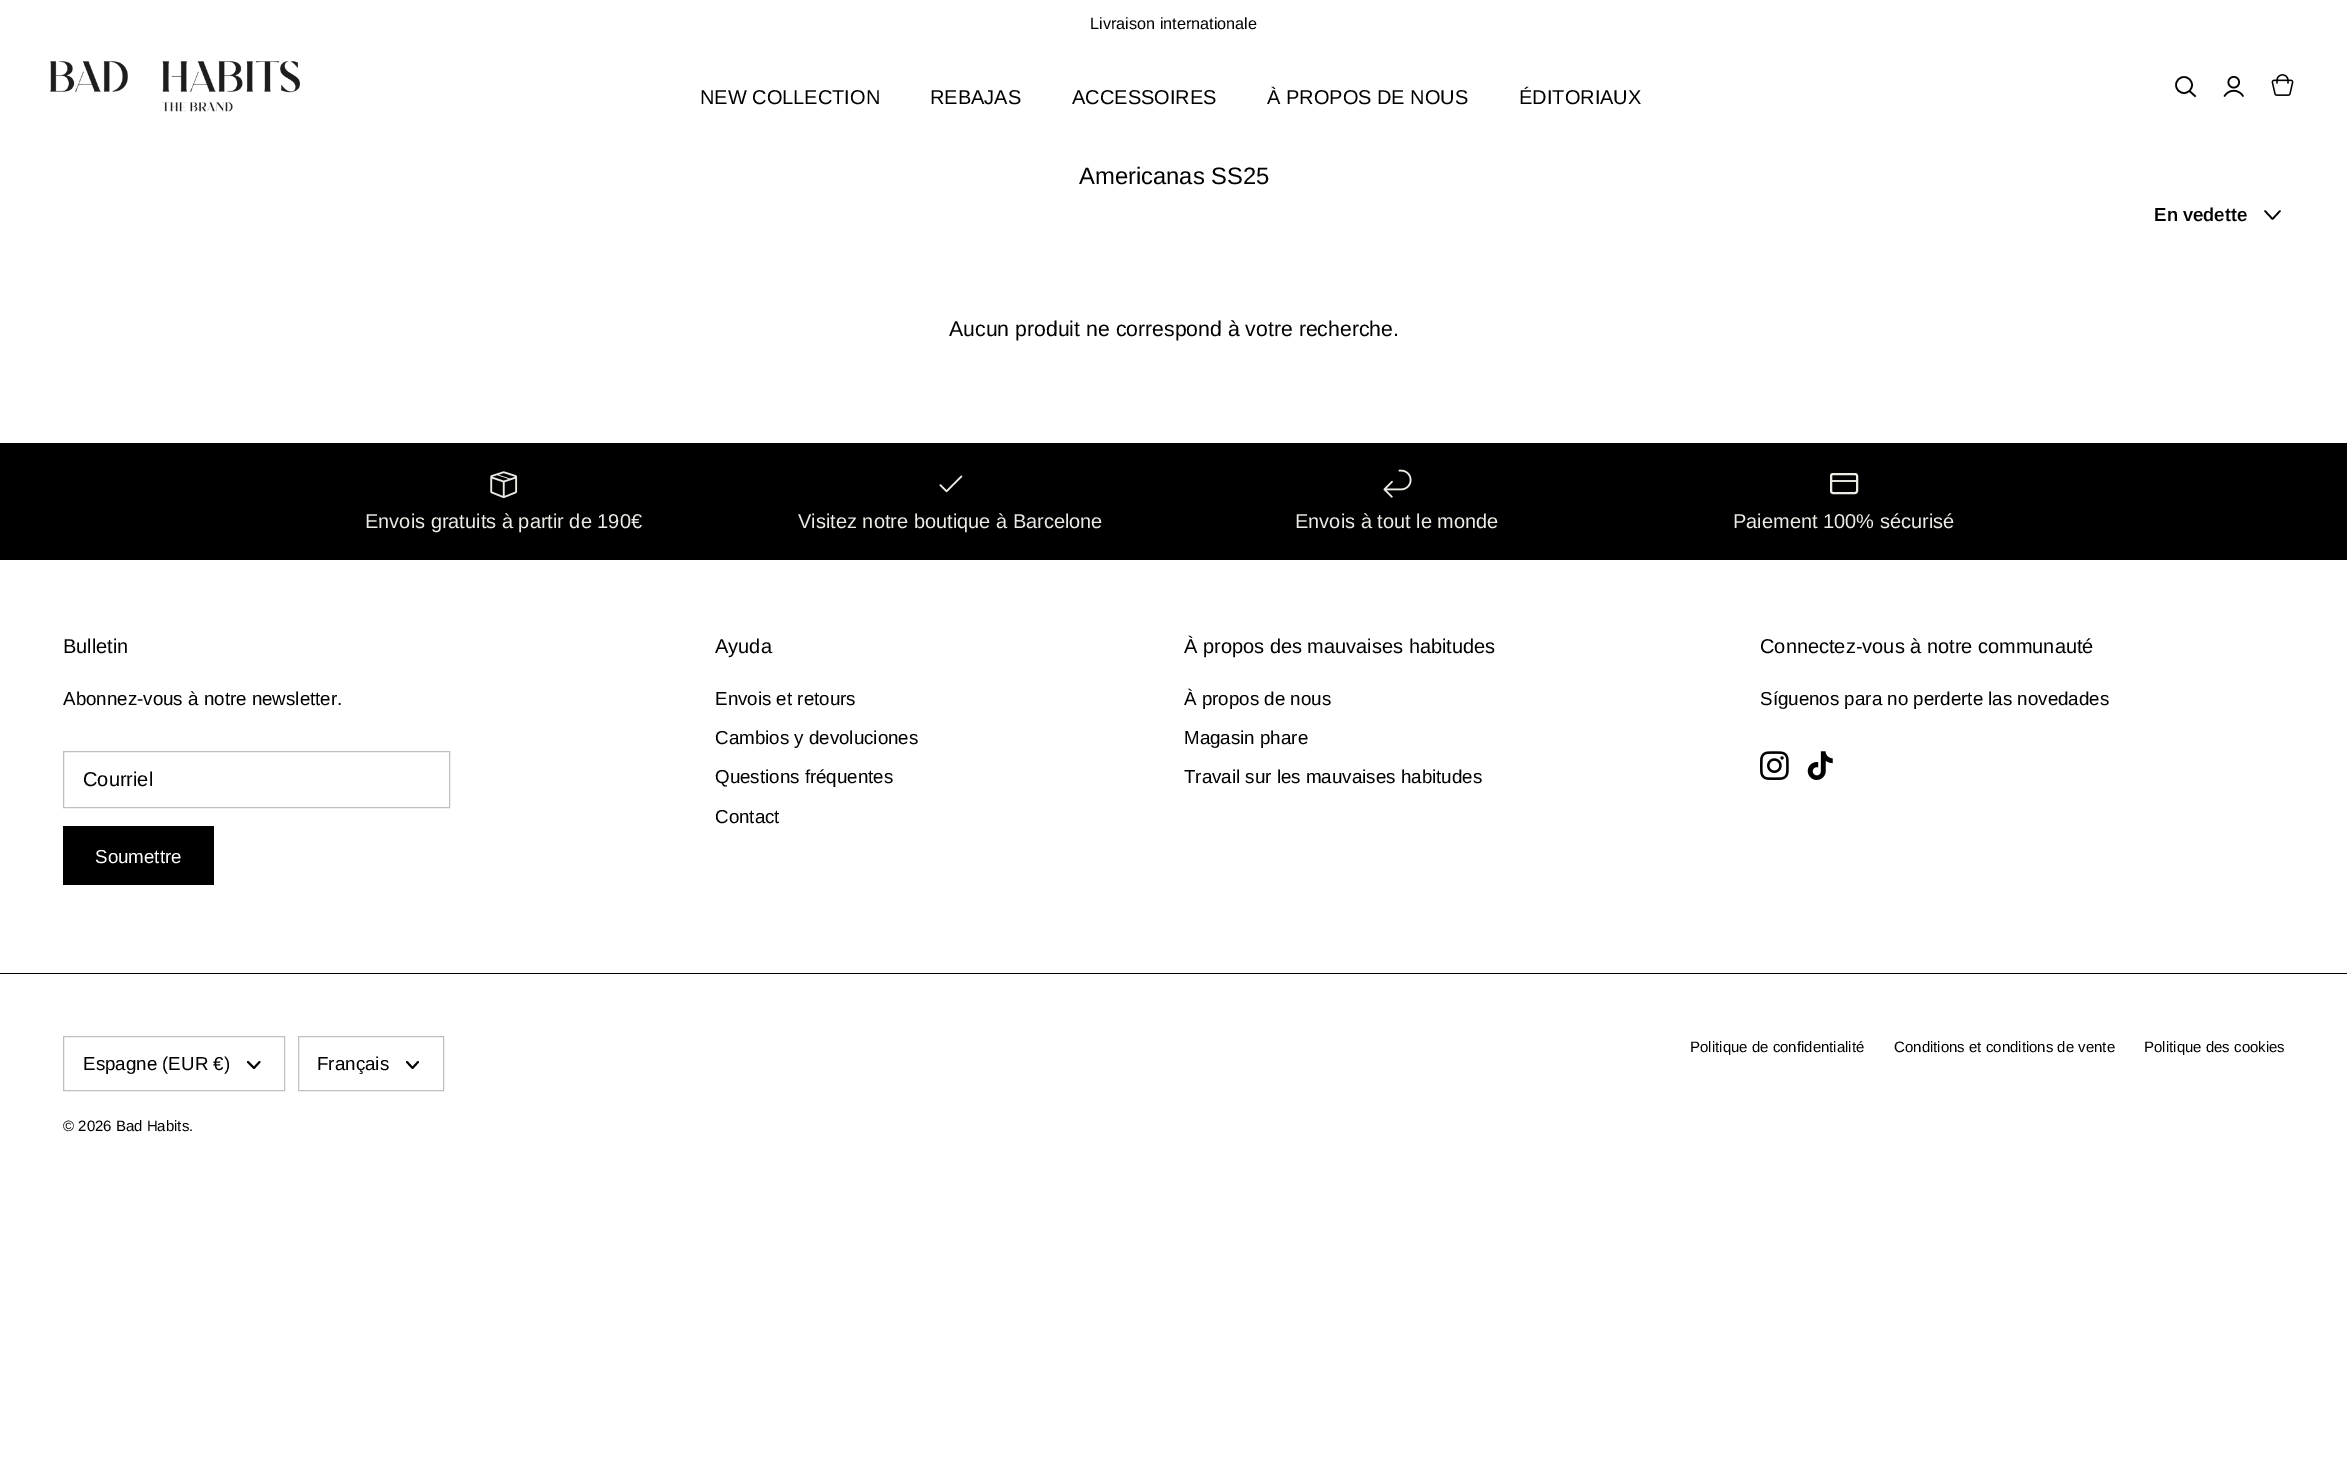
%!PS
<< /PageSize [2347 1466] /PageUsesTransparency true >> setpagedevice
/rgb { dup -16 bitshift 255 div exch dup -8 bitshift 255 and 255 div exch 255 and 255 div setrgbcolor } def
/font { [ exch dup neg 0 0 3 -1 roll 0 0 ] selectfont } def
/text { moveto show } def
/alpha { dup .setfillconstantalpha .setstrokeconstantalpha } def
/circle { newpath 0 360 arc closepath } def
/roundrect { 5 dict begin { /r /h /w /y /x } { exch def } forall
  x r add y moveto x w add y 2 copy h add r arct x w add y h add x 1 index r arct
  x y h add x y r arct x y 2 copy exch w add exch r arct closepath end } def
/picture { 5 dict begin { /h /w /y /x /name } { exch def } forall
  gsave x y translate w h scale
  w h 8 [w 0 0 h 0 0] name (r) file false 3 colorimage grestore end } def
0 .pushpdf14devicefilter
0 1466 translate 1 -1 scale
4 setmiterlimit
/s1 { /Arimo-Regular 16.25 font 16#000000 rgb } def
/s2 { /Arimo-Regular 20 font 16#000000 rgb } def
/s3 { /Arimo-Regular 23.75 font 16#000000 rgb } def
/s4 { /Arimo-SemiBold 18.75 font 16#000000 rgb } def
/s5 { /Arimo-Regular 21.25 font 16#000000 rgb } def
/s6 { /Arimo-Regular 20 font 16#EDEBE5 rgb } def
/s7 { /Arimo-Regular 18.75 font 16#000000 rgb } def
/s8 { /Arimo-Regular 18.75 font 16#FFFFFF rgb } def
/s9 { /Arimo-Regular 15 font 16#000000 rgb } def
16#FFFFFF rgb
0 0 2347 1466 rectfill
s1
(Livraison internationale) 1090 29 text
(pic1.raw) 50 61 250 51 picture
s2
(NEW COLLECTION) 700 104 text
(REBAJAS) 930 104 text
(ACCESSOIRES) 1072 104 text
(À PROPOS DE NOUS) 1267 104 text
(ÉDITORIAUX) 1519 104 text
1.6 setlinewidth
2184 85 8 circle stroke
2 setlinecap
2190 91.5 moveto 2195 96 lineto stroke
(pic2.raw) 2223 75 21 22 picture
(pic3.raw) 2271 74 23 22 picture
s3
(Americanas SS25) 1079 184 text
s4
(En vedette) 2154 221 text
1 setlinecap
1 setlinejoin
2265 211 moveto 2272.5 219 lineto 2280 211 lineto stroke
s5
(Aucun produit ne correspond à votre recherche.) 949 336 text
0 443 2347 117 rectfill
(pic4.raw) 490 471 28 28 picture
s6
(Envois gratuits à partir de 190€) 365 528 text
(pic5.raw) 939 475 24 18 picture
(Visitez notre boutique à Barcelone) 798 528 text
(pic6.raw) 1383 469 29 29 picture
(Envois à tout le monde) 1295 528 text
2 setlinewidth
0 setlinecap
0 setlinejoin
1831 474 26 19 2 roundrect stroke
0.95 alpha
1831 480 26 2 rectfill
1 alpha
(Paiement 100% sécurisé) 1733 528 text
s2
(Bulletin) 63 653 text
s7
(Abonnez-vous à notre newsletter.) 63 705 text
16#BFBFBF rgb
1 setlinewidth
63.5 751.5 386 56 rectstroke
s2
(Courriel) 83 786 text
63 826 151 59 rectfill
s8
(Soumettre) 95 863 text
s2
(Ayuda) 715 653 text
s7
(Envois et retours) 715 705 text
(Cambios y devoluciones) 715 744 text
(Questions fréquentes) 715 783 text
(Contact) 715 823 text
s2
(À propos des mauvaises habitudes) 1184 653 text
s7
(À propos de nous) 1184 705 text
(Magasin phare) 1184 744 text
(Travail sur les mauvaises habitudes) 1184 783 text
s2
(Connectez-vous à notre communauté) 1760 653 text
s7
(Síguenos para no perderte las novedades) 1760 705 text
(pic7.raw) 1760 751 29 29 picture
(pic8.raw) 1807 751 26 29 picture
0 973 2347 1 rectfill
s9
(Politique de confidentialité) 1690 1052 text
(Conditions et conditions de vente) 1894 1052 text
(Politique des cookies) 2144 1052 text
16#BFBFBF rgb
63.5 1036.5 221 54 rectstroke
s7
(Espagne \(EUR €\)) 83 1070 text
1.9 setlinewidth
1 setlinecap
1 setlinejoin
248 1062 moveto 254 1068 lineto 259.5 1062 lineto stroke
16#BFBFBF rgb
1 setlinewidth
0 setlinecap
0 setlinejoin
298.5 1036.5 145 54 rectstroke
s7
(Français) 317 1070 text
1.9 setlinewidth
1 setlinecap
1 setlinejoin
407 1062 moveto 412.5 1068 lineto 418 1062 lineto stroke
s9
(© 2026 Bad Habits.) 63 1131 text
.poppdf14devicefilter showpage
